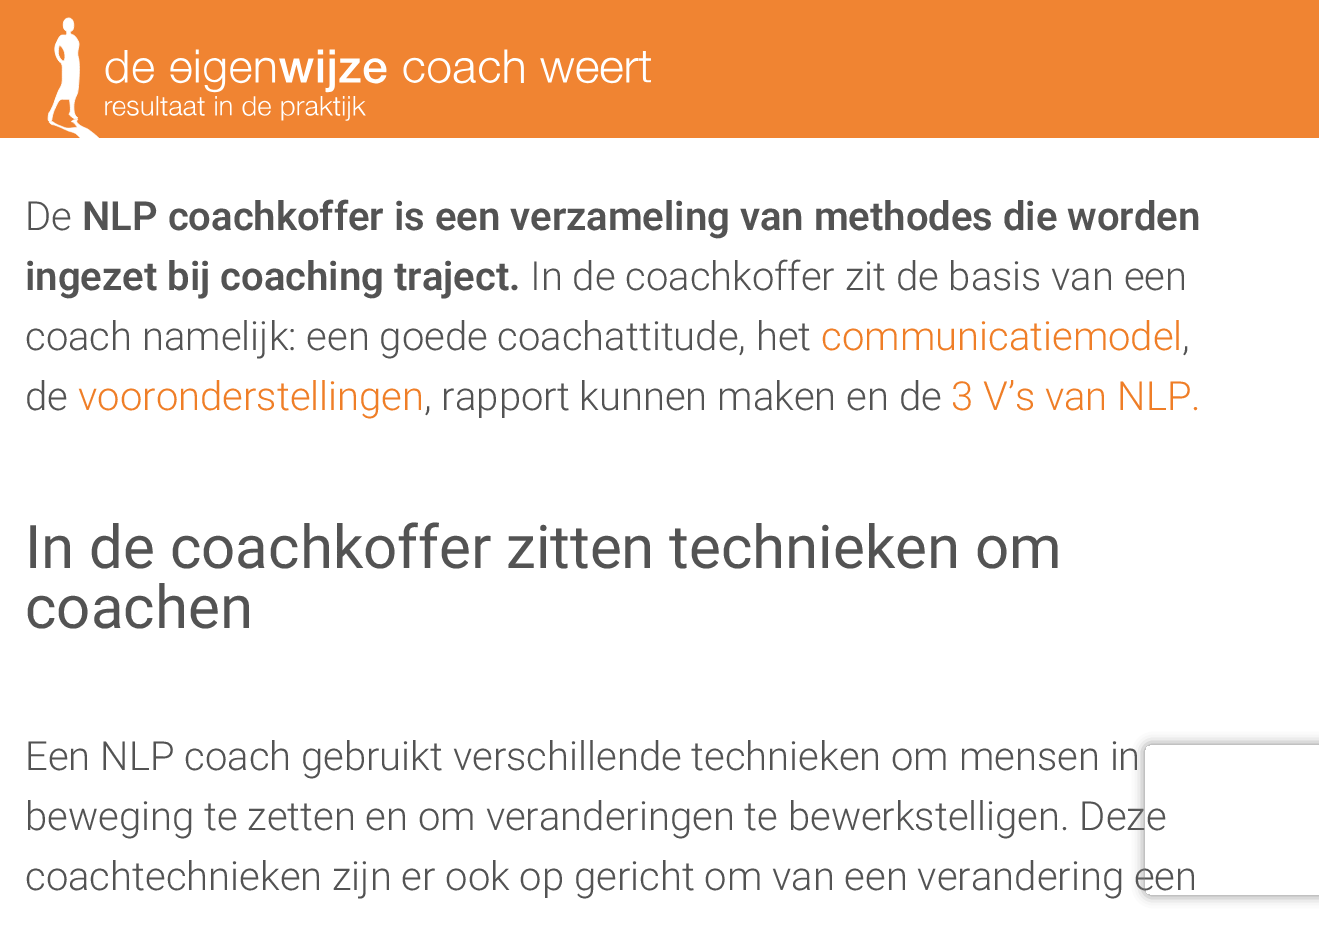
%!PS
<< /PageSize [1319 929] /PageUsesTransparency true >> setpagedevice
/rgb { dup -16 bitshift 255 div exch dup -8 bitshift 255 and 255 div exch 255 and 255 div setrgbcolor } def
/font { [ exch dup neg 0 0 3 -1 roll 0 0 ] selectfont } def
/text { moveto show } def
/alpha { dup .setfillconstantalpha .setstrokeconstantalpha } def
/roundrect { 5 dict begin { /r /h /w /y /x } { exch def } forall
  x r add y moveto x w add y 2 copy h add r arct x w add y h add x 1 index r arct
  x y h add x y r arct x y 2 copy exch w add exch r arct closepath end } def
/shadow { 12 dict begin { /a /b /q /h /w /y /x } { exch def } forall gsave /was 0 def
  9 -2 -9 { dup b mul 4 div /e exch def 1 sub .425 mul 2.718 exch exp 1 add a .99 .min exch div /now exch def
    1 1 now sub 1 was sub div sub alpha /was now def
    w h .min e 2 mul add 0 gt { x e sub y e sub w e 2 mul add h e 2 mul add
      q e add b .6 mul add w h .min 2 div e add .min 0 .max roundrect fill } if } for grestore end } def
/picture { 5 dict begin { /h /w /y /x /name } { exch def } forall
  gsave x y translate w h scale
  w h 8 [w 0 0 h 0 0] name (r) file false 3 colorimage grestore end } def
0 .pushpdf14devicefilter
0 929 translate 1 -1 scale
4 setmiterlimit
/s1 { /Roboto-Light 40 font 16#535353 rgb } def
/s2 { /Roboto-SemiBold 40 font 16#535353 rgb } def
/s3 { /Roboto-Light 40 font 16#EF7E27 rgb } def
/s4 { /Roboto-Regular 60 font 16#535353 rgb } def
16#FFFFFF rgb
0 0 1319 929 rectfill
16#F08432 rgb
0 0 1319 138 rectfill
(pic1.raw) 47 17 604 121 picture
s1
(De) 25 230 text
s2
(NLP coachkoffer is een verzameling van methodes die worden) 82 230 text
(ingezet bij coaching traject.) 25 290 text
s1
(In de coachkoffer zit de basis van een) 530 290 text
(coach namelijk: een goede coachattitude, het) 25 350 text
s3
(communicatiemodel) 821 350 text
s1
(,) 1182 350 text
(de) 25 410 text
s3
(vooronderstellingen) 78 410 text
s1
(, rapport kunnen maken en de) 424 410 text
s3
(3 V’s van NLP.) 951 410 text
s4
(In de coachkoffer zitten technieken om) 25 568 text
(coachen) 25 628 text
s1
(Een NLP coach gebruikt verschillende technieken om mensen in) 25 770 text
(beweging te zetten en om veranderingen te bewerkstelligen. Deze) 25 830 text
(coachtechnieken zijn er ook op gericht om van een verandering een) 25 890 text
gsave
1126 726 moveto 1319 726 lineto 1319 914 lineto 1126 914 lineto closepath 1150 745 moveto 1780 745 lineto 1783 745 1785 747 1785 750 curveto 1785 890 lineto 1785 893 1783 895 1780 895 curveto 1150 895 lineto 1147 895 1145 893 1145 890 curveto 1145 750 lineto 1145 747 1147 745 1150 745 curveto closepath eoclip newpath
16#808080 rgb
1145 745 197 150 5 6 1 shadow
grestore
.poppdf14devicefilter showpage
